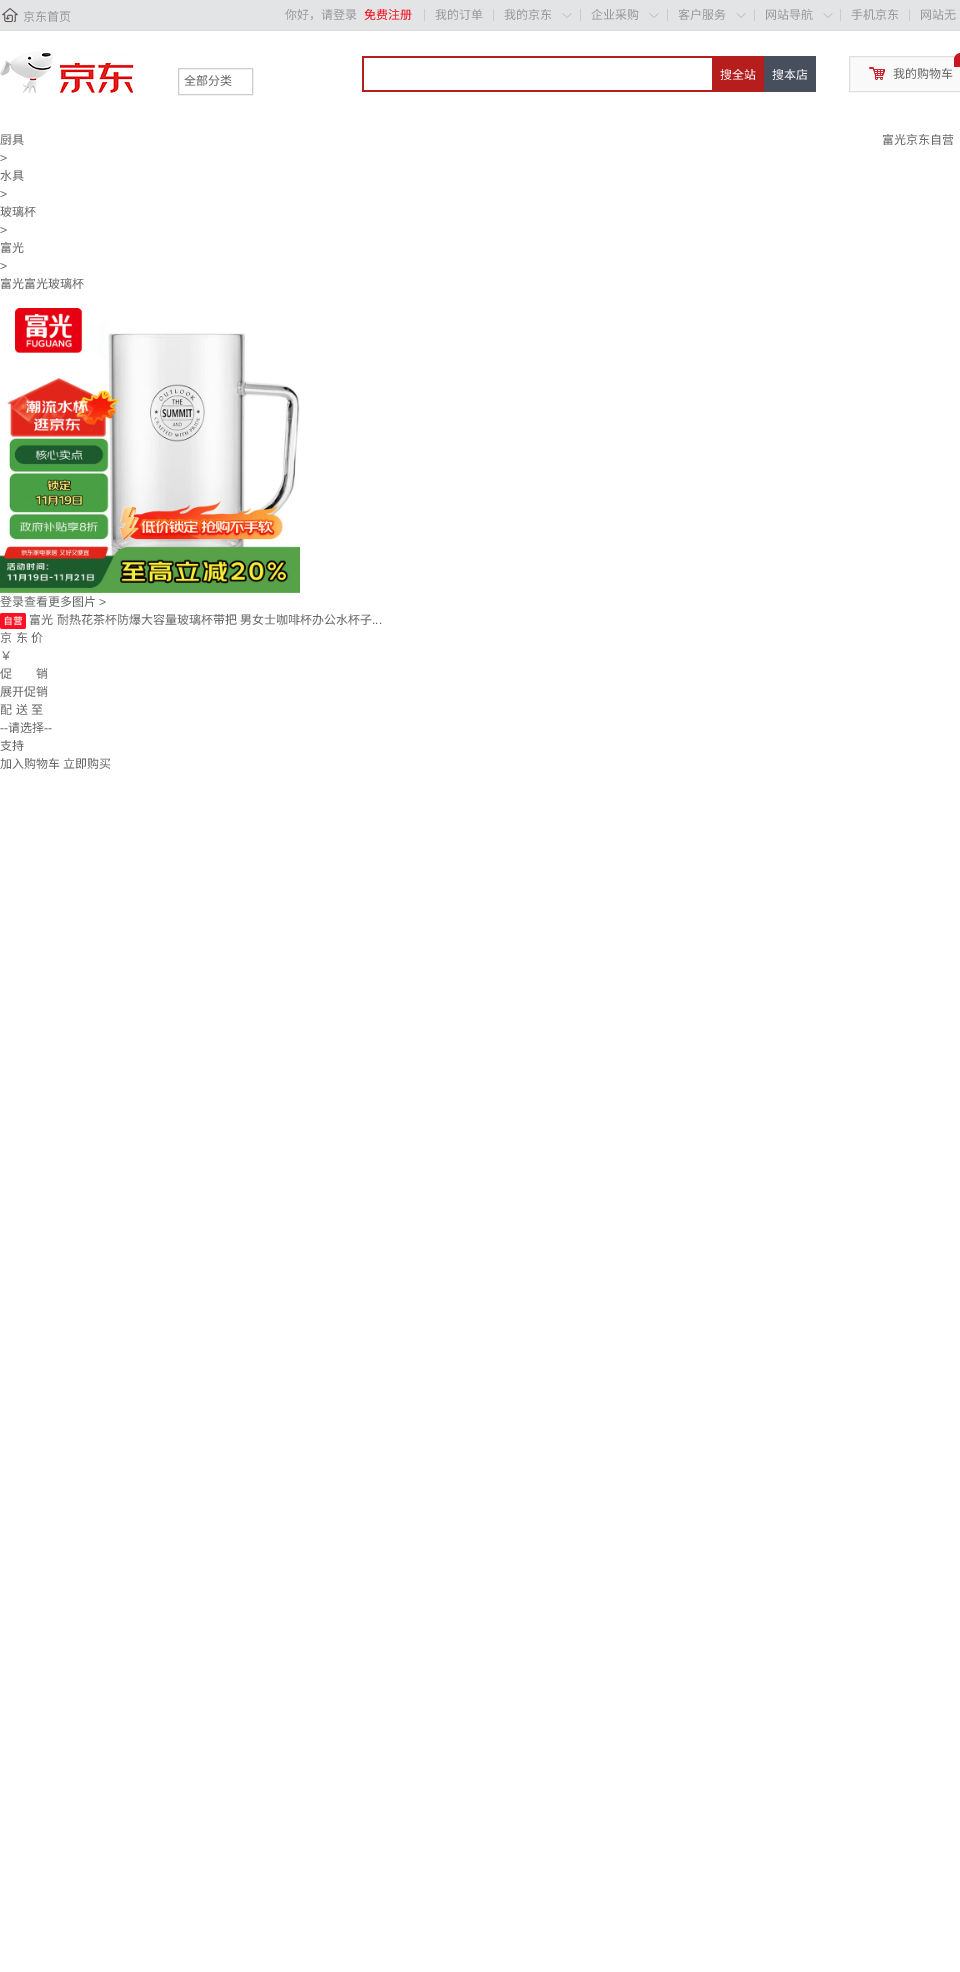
%!PS
<< /PageSize [960 1972] >> setpagedevice
/rgb { dup -16 bitshift 255 div exch dup -8 bitshift 255 and 255 div exch 255 and 255 div setrgbcolor } def
/font { [ exch dup neg 0 0 3 -1 roll 0 0 ] selectfont } def
/text { moveto show } def
/picture { 5 dict begin { /h /w /y /x /name } { exch def } forall
  gsave x y translate w h scale
  w h 8 [w 0 0 h 0 0] name (r) file false 3 colorimage grestore end } def
0 1972 translate 1 -1 scale
4 setmiterlimit
/s1 { /NotoSansCJKSC-Regular 12 font 16#999999 rgb } def
/s2 { /NotoSansCJKSC-Regular 12 font 16#F30213 rgb } def
/s3 { /NotoSansCJKSC-Regular 12 font 16#666666 rgb } def
/s4 { /NotoSansCJKSC-Regular 12 font 16#FFFFFF rgb } def
/s5 { /LiberationSans-Regular 12 font 16#666666 rgb } def
16#FFFFFF rgb
0 0 960 1972 rectfill
16#E3E4E5 rgb
0 0 960 30 rectfill
16#DDDDDD rgb
0 30 960 1 rectfill
(pic1.raw) 2 8 16 15 picture
s1
(京东首页) 23 21 text
(你好，请登录) 285 19 text
s2
(免费注册) 364 19 text
16#CCCCCC rgb
424 9 1 12 rectfill
s1
(我的订单) 435 19 text
16#CCCCCC rgb
493 9 1 12 rectfill
s1
(我的京东) 504 19 text
(pic2.raw) 562 13 10 5 picture
16#CCCCCC rgb
580 9 1 12 rectfill
s1
(企业采购) 591 19 text
(pic2.raw) 649 13 10 5 picture
16#CCCCCC rgb
667 9 1 12 rectfill
s1
(客户服务) 678 19 text
(pic2.raw) 736 13 10 5 picture
16#CCCCCC rgb
754 9 1 12 rectfill
s1
(网站导航) 765 19 text
(pic2.raw) 823 13 10 5 picture
16#CCCCCC rgb
840 9 1 12 rectfill
s1
(手机京东) 851 19 text
16#CCCCCC rgb
909 9 1 12 rectfill
s1
(网站无) 920 19 text
(pic3.raw) 0 51 134 42 picture
16#CCCCCC rgb
178.5 68.5 74 26 rectstroke
s3
(全部分类) 184 85 text
16#B61D1D rgb
362 56 350 2 rectfill
362 90 350 2 rectfill
362 56 2 36 rectfill
712 56 52 36 rectfill
s4
(搜全站) 720 79 text
16#474E5C rgb
764 56 52 36 rectfill
s4
(搜本店) 772 79 text
16#F9F9F9 rgb
849.5 56.5 moveto 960.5 56.5 lineto 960.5 91.5 lineto 849.5 91.5 lineto closepath gsave fill grestore
16#DFDFDF rgb
stroke
16#C81623 rgb
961 53 moveto 960 53 lineto 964 53 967 56 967 60 curveto 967 64 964 67 960 67 curveto 954 67 lineto 954 60 lineto 954 56 957 53 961 53 curveto closepath fill
(pic4.raw) 869 67 16 13 picture
s3
(我的购物车) 893 78 text
(厨具) 0 144 text
s5
(>) 0 162 text
s3
(水具) 0 180 text
s5
(>) 0 198 text
s3
(玻璃杯) 0 216 text
s5
(>) 0 234 text
s3
(富光) 0 252 text
s5
(>) 0 270 text
s3
(富光富光玻璃杯) 0 288 text
(富光京东自营) 882 144 text
(pic5.raw) 0 307 300 286 picture
(登录查看更多图片) 0 606 text
s5
(>) 99 606 text
(pic6.raw) 0 613 26 16 picture
/NotoSansCJKSC-Regular 12 font
29 624 moveto 1 0 32 (富光 耐热花茶杯防爆大容量玻璃杯带把 男女士咖啡杯办公水杯子) widthshow
s5
(...) 372 624 text
/NotoSansCJKSC-Regular 12 font
0 642 moveto 1 0 32 (京 东 价) widthshow
(￥) 0 660 text
(促　　销) 0 678 text
(展开促销) 0 696 text
0 714 moveto 1 0 32 (配 送 至) widthshow
s5
(--) 0 732 text
s3
(请选择) 8 732 text
s5
(--) 44 732 text
s3
(支持) 0 750 text
(加入购物车) 0 768 text
(立即购买) 63 768 text
showpage
